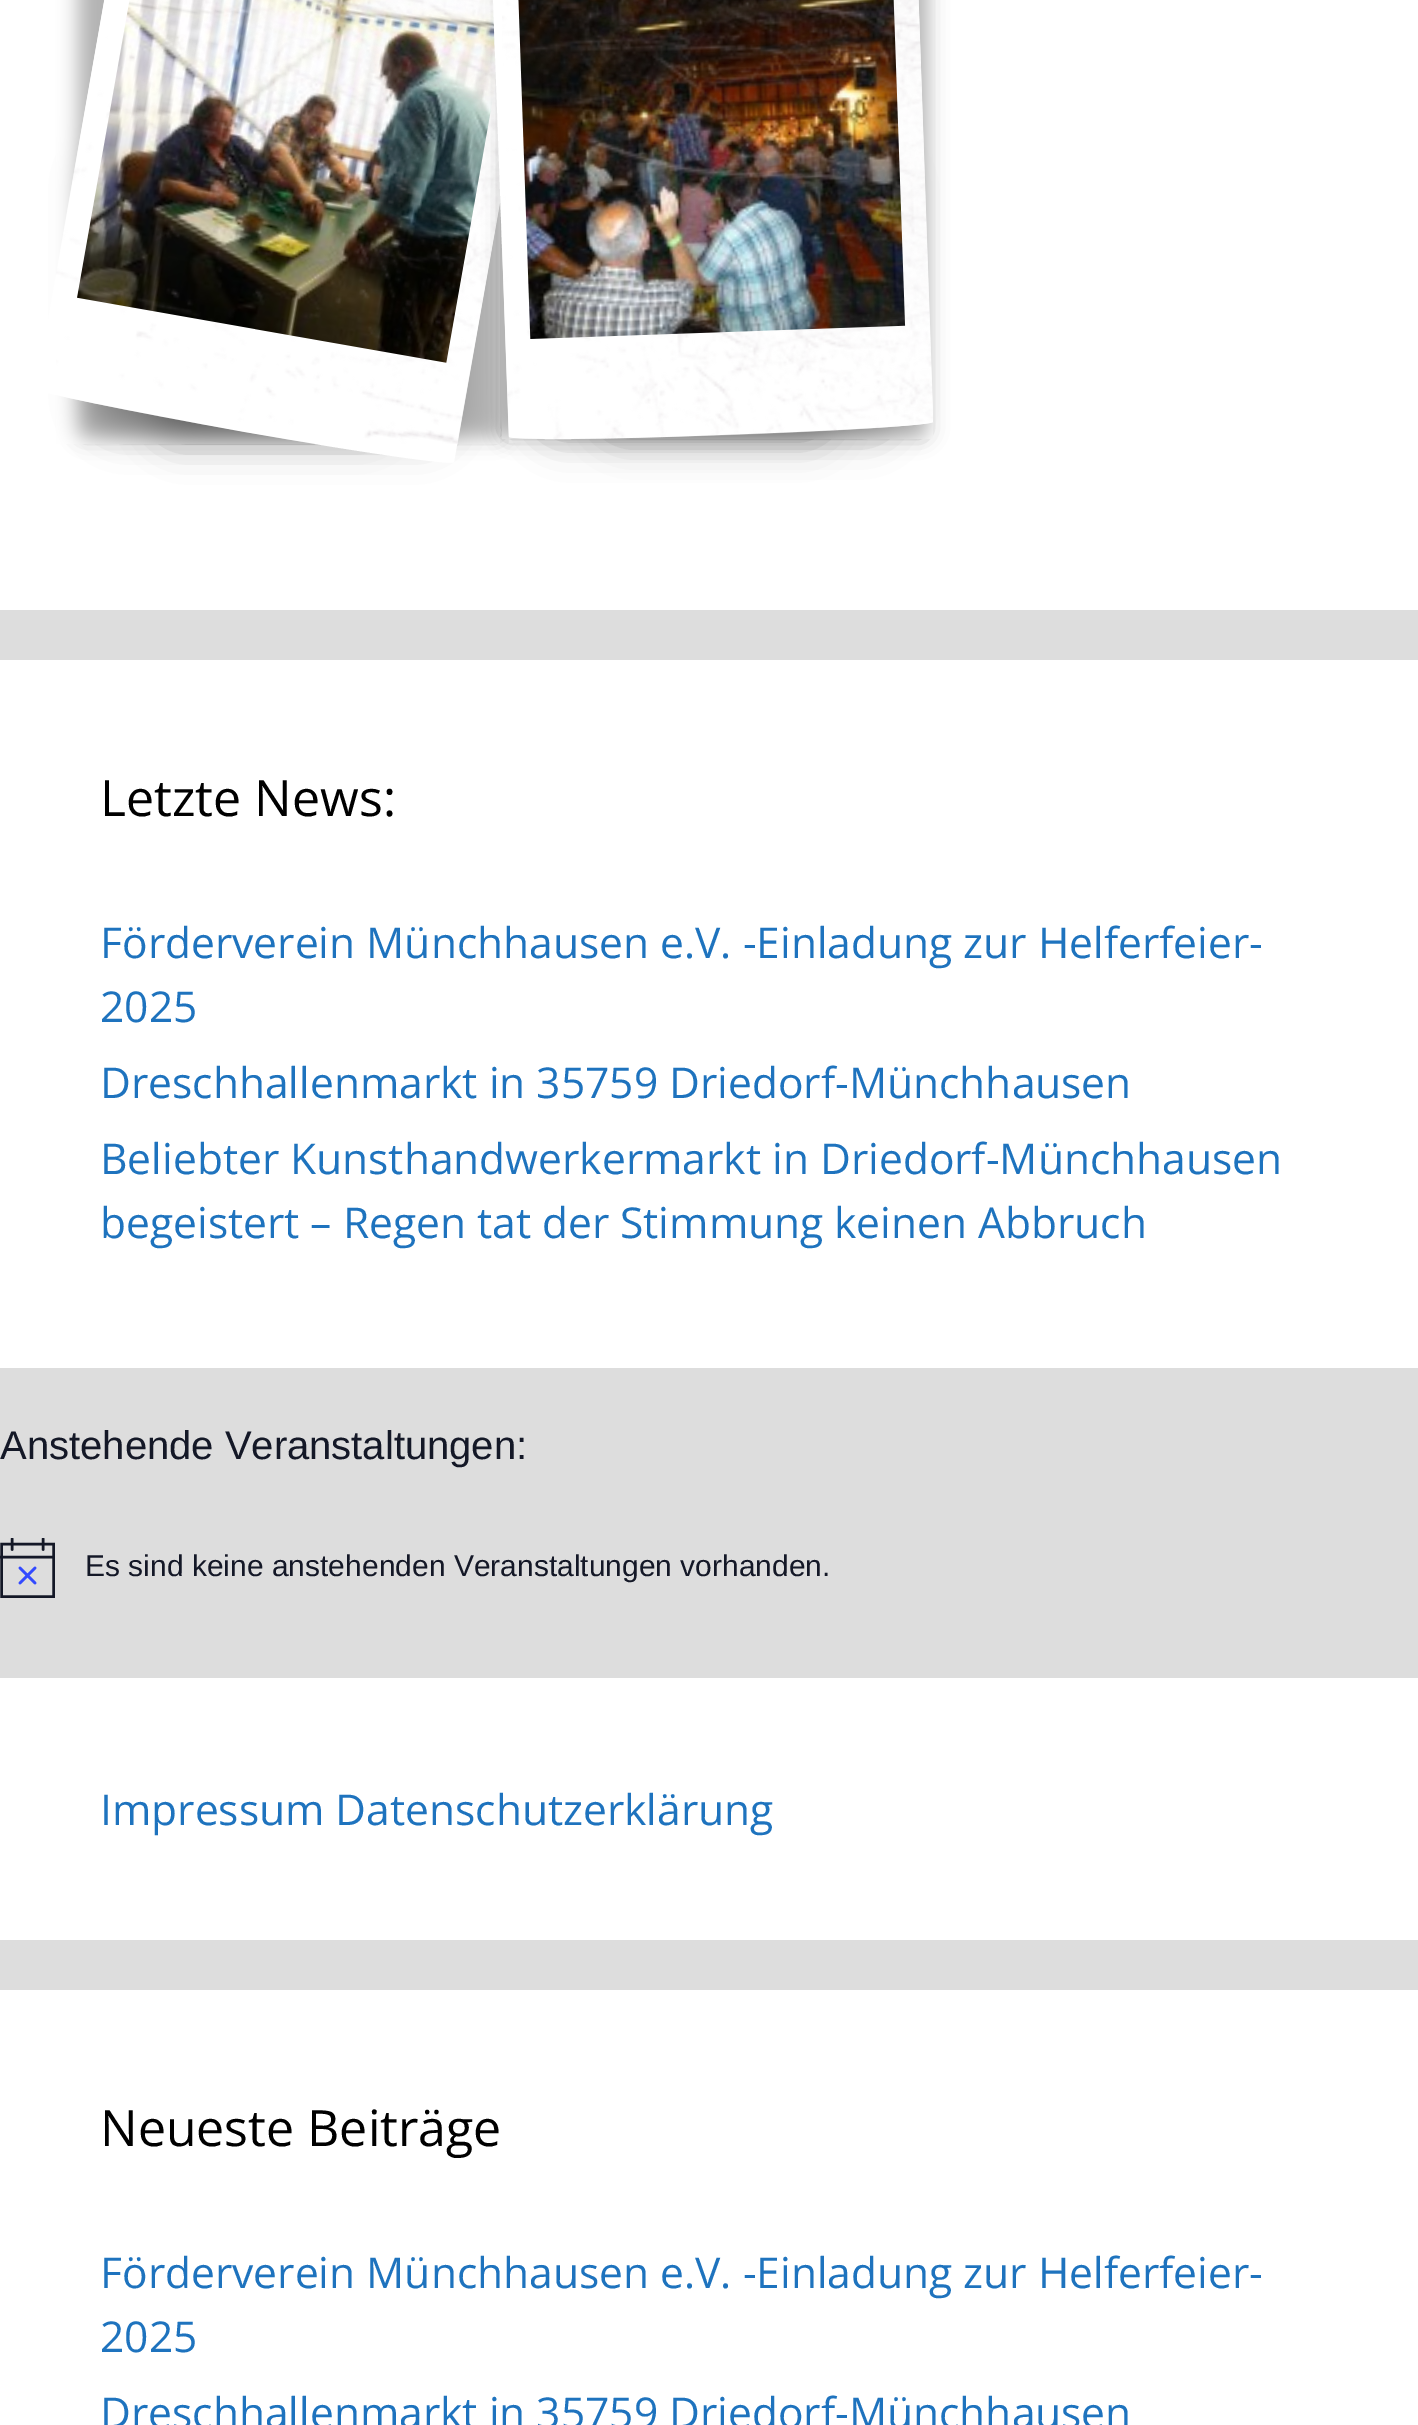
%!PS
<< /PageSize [1418 2425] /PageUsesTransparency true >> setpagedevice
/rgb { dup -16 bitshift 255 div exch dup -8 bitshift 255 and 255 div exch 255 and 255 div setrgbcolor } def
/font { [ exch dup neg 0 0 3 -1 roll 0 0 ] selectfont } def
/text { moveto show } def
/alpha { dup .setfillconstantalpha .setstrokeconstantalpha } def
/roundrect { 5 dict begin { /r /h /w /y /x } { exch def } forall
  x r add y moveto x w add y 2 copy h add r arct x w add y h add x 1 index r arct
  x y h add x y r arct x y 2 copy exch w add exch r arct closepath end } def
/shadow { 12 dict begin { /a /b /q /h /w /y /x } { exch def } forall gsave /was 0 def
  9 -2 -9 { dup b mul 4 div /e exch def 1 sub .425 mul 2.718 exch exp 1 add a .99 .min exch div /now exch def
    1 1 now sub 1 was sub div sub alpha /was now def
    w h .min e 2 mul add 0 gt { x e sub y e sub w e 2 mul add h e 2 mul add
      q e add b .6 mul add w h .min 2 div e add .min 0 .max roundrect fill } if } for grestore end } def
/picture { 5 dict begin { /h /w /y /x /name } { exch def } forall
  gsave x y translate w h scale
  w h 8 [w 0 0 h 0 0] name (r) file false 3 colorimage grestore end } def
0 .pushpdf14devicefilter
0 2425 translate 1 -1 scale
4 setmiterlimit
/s1 { /OpenSans-Regular 50 font 16#000000 rgb } def
/s2 { /OpenSans-Regular 42.5 font 16#1E73BE rgb } def
/s3 { /LiberationSans-Regular 40 font 16#141827 rgb } def
/s4 { /LiberationSans-Regular 30 font 16#141827 rgb } def
16#DDDDDD rgb
0 0 1418 2425 rectfill
16#FFFFFF rgb
0 0 1418 610 rectfill
16#000000 rgb
78 -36 425 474 6 10 0.3 shadow
93 153 297 277 25 20 0.3 shadow
153 163 297 277 25 20 0.3 shadow
16#FFFFFF rgb
122 -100 moveto 540 -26 lineto 454 462 lineto 454 466 359 452 244 432 curveto 128 411 35 392 36 389 curveto closepath fill
(pic1.raw) 77 0 419 363 picture
(pic2.raw) 56 0 444 444 picture
491 -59 moveto 916 -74 lineto 934 428 lineto 509 443 lineto closepath fill
16#000000 rgb
503 -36 425 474 6 10 0.3 shadow
598 158 297 277 25 20 0.3 shadow
535 160 298 278 25 20 0.3 shadow
16#FFFFFF rgb
491 -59 moveto 916 -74 lineto 933 422 lineto 934 425 839 431 721 435 curveto 604 440 509 440 509 437 curveto closepath fill
(pic3.raw) 518 0 388 339 picture
(pic4.raw) 502 0 431 439 picture
0 660 1418 708 rectfill
s1
(Letzte News:) 100 816 text
s2
(Förderverein Münchhausen e.V. -Einladung zur Helferfeier-) 100 958 text
(2025) 100 1022 text
(Dreschhallenmarkt in 35759 Driedorf-Münchhausen) 100 1098 text
(Beliebter Kunsthandwerkermarkt in Driedorf-Münchhausen) 100 1174 text
(begeistert – Regen tat der Stimmung keinen Abbruch) 100 1238 text
s3
(Anstehende Veranstaltungen:) 0 1459 text
2.6 setlinewidth
1.5 1544 moveto 53.5 1544 lineto 53.5 1596.5 lineto 1.5 1596.5 lineto closepath stroke
16#334AFF rgb
1 setlinecap
20 1568 moveto 35 1583 lineto 35 1568 moveto 20 1583 lineto stroke
gsave
0 1538 55 60 rectclip
16#141827 rgb
12 1539 moveto 12 1549.5 lineto 43 1539 moveto 43 1549.5 lineto stroke
grestore
16#141827 rgb
2 setlinecap
1.5 1557 moveto 53.5 1557 lineto stroke
s4
(Es sind keine anstehenden Veranstaltungen vorhanden.) 85 1576 text
16#FFFFFF rgb
0 1678 1418 262 rectfill
s2
(Impressum Datenschutzerklärung) 100 1825 text
16#FFFFFF rgb
0 1990 1418 435 rectfill
s1
(Neueste Beiträge) 100 2146 text
s2
(Förderverein Münchhausen e.V. -Einladung zur Helferfeier-) 100 2288 text
(2025) 100 2352 text
(Dreschhallenmarkt in 35759 Driedorf-Münchhausen) 100 2428 text
.poppdf14devicefilter showpage
